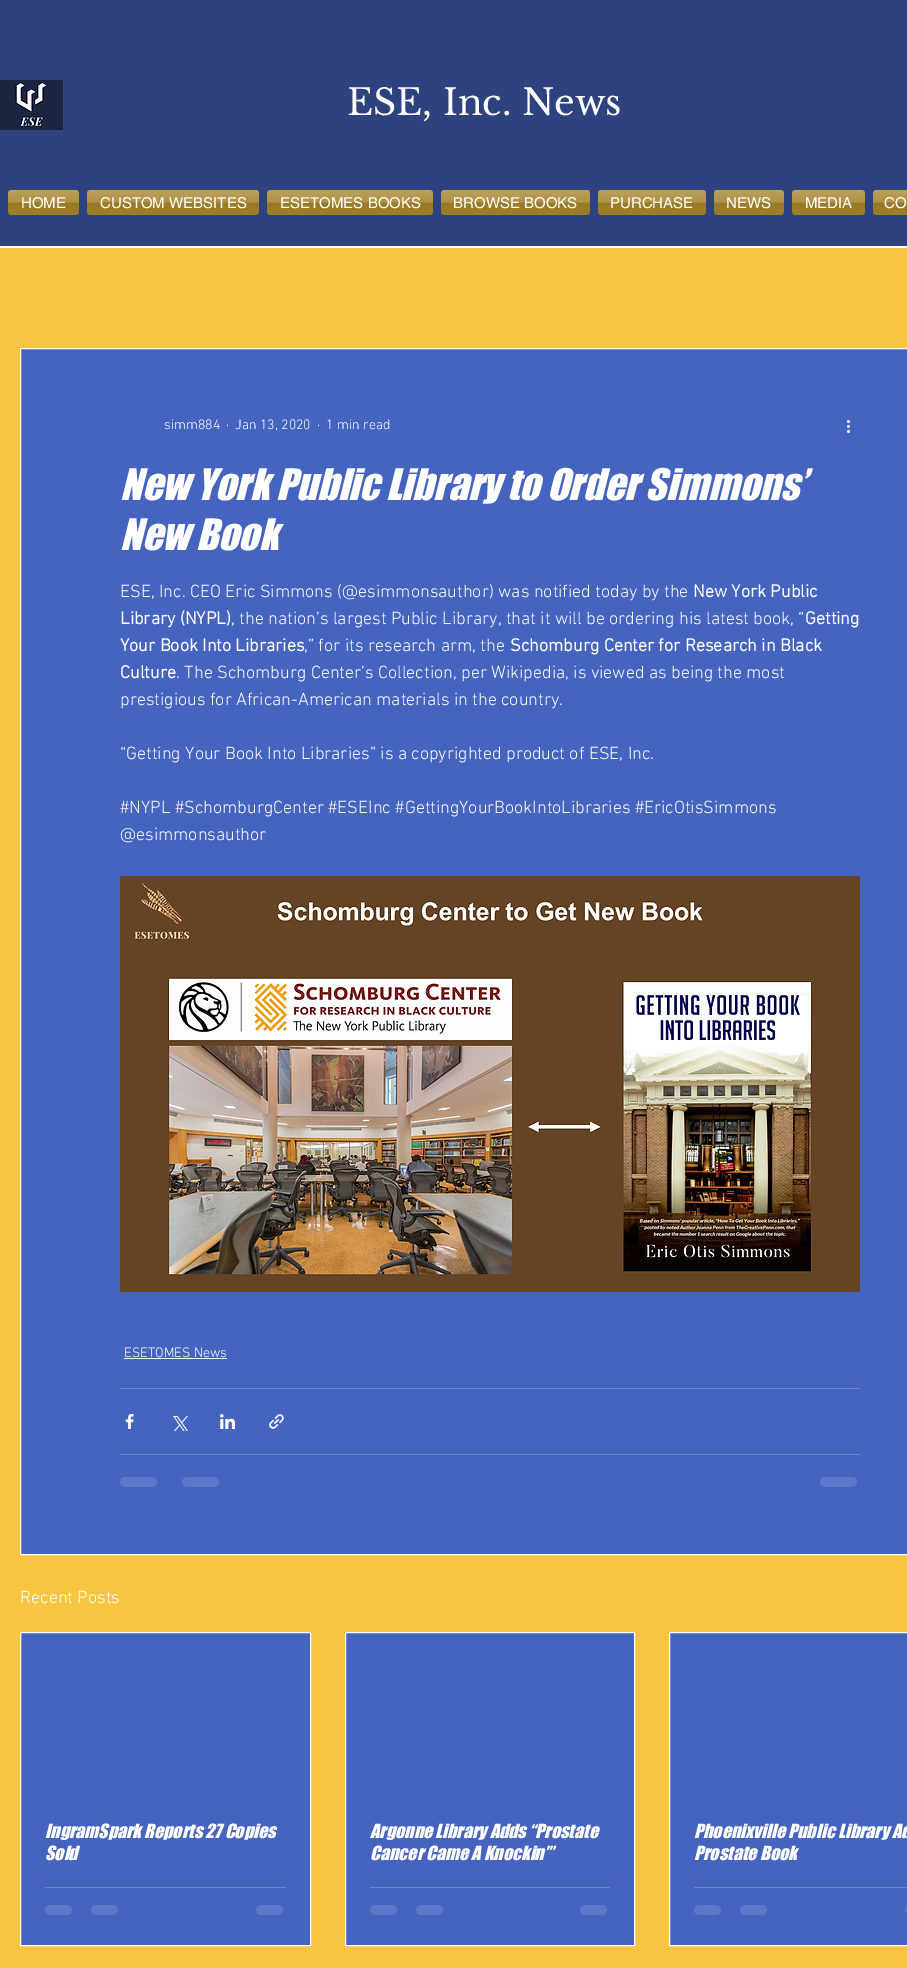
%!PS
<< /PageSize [907 1968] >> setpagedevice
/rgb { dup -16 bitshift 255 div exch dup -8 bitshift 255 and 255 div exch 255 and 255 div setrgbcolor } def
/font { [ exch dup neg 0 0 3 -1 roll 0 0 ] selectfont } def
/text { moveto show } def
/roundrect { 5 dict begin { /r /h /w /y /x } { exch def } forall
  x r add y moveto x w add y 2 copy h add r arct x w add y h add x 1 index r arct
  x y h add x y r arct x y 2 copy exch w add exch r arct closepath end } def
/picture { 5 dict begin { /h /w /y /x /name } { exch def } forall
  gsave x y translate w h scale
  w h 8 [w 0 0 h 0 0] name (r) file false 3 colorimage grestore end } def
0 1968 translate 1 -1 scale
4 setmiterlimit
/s1 { /LibreBaskerville-Regular 36 font 16#FFFFFF rgb } def
/s2 { /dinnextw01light-Light 14 font 16#FFFFFF rgb } def
/s3 { /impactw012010-Italic 40 font 16#FFFFFF rgb } def
/s4 { /dinnextw01light-Light 18 font 16#FFFFFF rgb } def
/s5 { /dinnextw01light-Bold 18 font 16#FFFFFF rgb } def
/s6 { /impactw012010-Italic 18 font 16#FFFFFF rgb } def
/s7 { /helvetica-Regular 15 font 16#FFFFFF rgb } def
16#F7C540 rgb
0 0 907 1968 rectfill
16#2E4280 rgb
0 0 907 246 rectfill
(pic1.raw) 0 80 63 50 picture
s1
(ESE, Inc. News) 347 115 text
16#4564BF rgb
20.5 348.5 moveto 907.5 348.5 lineto 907.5 1554.5 lineto 20.5 1554.5 lineto closepath gsave fill grestore
16#FFFFFF rgb
stroke
s2
(simm884) 164 429 text
(·) 226 429 text
(Jan 13, 2020) 235 429 text
(·) 317 429 text
(1 min read) 326 429 text
(pic2.raw) 847 420 3 13 picture
s3
(New York Public Library to Order Simmons’) 120 500 text
(New Book) 120 550 text
s4
(ESE, Inc. CEO Eric Simmons \(@esimmonsauthor\) was notified today by the) 120 597 text
s5
(New York Public) 693 597 text
(Library \(NYPL\)) 120 624 text
s4
(, the nation’s largest Public Library, that it will be ordering his latest book, “) 231 624 text
s5
(Getting) 805 624 text
(Your Book Into Libraries) 120 651 text
s4
(,” for its research arm, the) 304 651 text
s5
(Schomburg Center for Research in Black) 510 651 text
(Culture) 120 678 text
s4
(. The Schomburg Center’s Collection, per Wikipedia, is viewed as being the most) 176 678 text
(prestigious for African-American materials in the country.) 120 705 text
(“Getting Your Book Into Libraries” is a copyrighted product of ESE, Inc.) 120 759 text
(#NYPL #SchomburgCenter #ESEInc #GettingYourBookIntoLibraries #EricOtisSimmons) 120 813 text
(@esimmonsauthor) 120 840 text
(pic3.raw) 120 876 740 416 picture
s2
(ESETOMES News) 124 1357 text
124 1358 103 1 rectfill
16#6A83CC rgb
120 1388 740 1 rectfill
(pic4.raw) 125 1414 9 15 picture
(pic5.raw) 173 1416 15 15 picture
(pic6.raw) 220 1414 15 15 picture
(pic7.raw) 269 1414 15 15 picture
120 1454 740 1 rectfill
16#5B77C7 rgb
120 1477 37 10 5 roundrect fill
182 1477 37 10 5 roundrect fill
820 1477 37 10 5 roundrect fill
s4
(Recent Posts) 20 1603 text
16#4564BF rgb
20.5 1632.5 moveto 310.5 1632.5 lineto 310.5 1945.5 lineto 20.5 1945.5 lineto closepath gsave fill grestore
16#FFFFFF rgb
stroke
s6
(IngramSpark Reports 27 Copies) 45 1838 text
(Sold) 45 1860 text
16#6A83CC rgb
45 1887 241 1 rectfill
16#5B77C7 rgb
45 1905 27 10 5 roundrect fill
91 1905 27 10 5 roundrect fill
256 1905 27 10 5 roundrect fill
16#4564BF rgb
345.5 1632.5 moveto 634.5 1632.5 lineto 634.5 1945.5 lineto 345.5 1945.5 lineto closepath gsave fill grestore
16#FFFFFF rgb
stroke
(Argonne Library Adds “Prostate) 370 1838 text
(Cancer Came A Knockin’”) 370 1860 text
16#6A83CC rgb
370 1887 240 1 rectfill
16#5B77C7 rgb
370 1905 27 10 5 roundrect fill
416 1905 27 10 5 roundrect fill
580 1905 27 10 5 roundrect fill
16#4564BF rgb
669.5 1632.5 moveto 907.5 1632.5 lineto 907.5 1945.5 lineto 669.5 1945.5 lineto closepath gsave fill grestore
16#FFFFFF rgb
stroke
(Phoenixville Public Library Ad) 694 1838 text
(Prostate Book) 694 1860 text
16#6A83CC rgb
694 1887 213 1 rectfill
16#5B77C7 rgb
694 1905 27 10 5 roundrect fill
740 1905 27 10 5 roundrect fill
905 1905 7 10 5 roundrect fill
16#FFFFFF rgb
0 246 907 2 rectfill
16#A5832B rgb
8 190 71 25 3 roundrect fill
(pic8.raw) 8 190 71 25 picture
s7
(HOME) 21 208 text
16#A5832B rgb
87 190 172 25 3 roundrect fill
(pic9.raw) 87 190 172 25 picture
s7
(CUSTOM WEBSITES) 100 208 text
16#A5832B rgb
267 190 166 25 3 roundrect fill
(pic10.raw) 267 190 166 25 picture
s7
(ESETOMES BOOKS) 280 208 text
16#A5832B rgb
441 190 149 25 3 roundrect fill
(pic11.raw) 441 190 149 25 picture
s7
(BROWSE BOOKS) 453 208 text
16#A5832B rgb
598 190 108 25 3 roundrect fill
(pic12.raw) 598 190 108 25 picture
s7
(PURCHASE) 610 208 text
16#A5832B rgb
714 190 70 25 3 roundrect fill
(pic13.raw) 714 190 70 25 picture
s7
(NEWS) 726 208 text
16#A5832B rgb
792 190 73 25 3 roundrect fill
(pic14.raw) 792 190 73 25 picture
s7
(MEDIA) 805 208 text
16#A5832B rgb
873 190 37 25 3 roundrect fill
(pic15.raw) 873 190 34 25 picture
s7
(CO) 884 208 text
showpage
